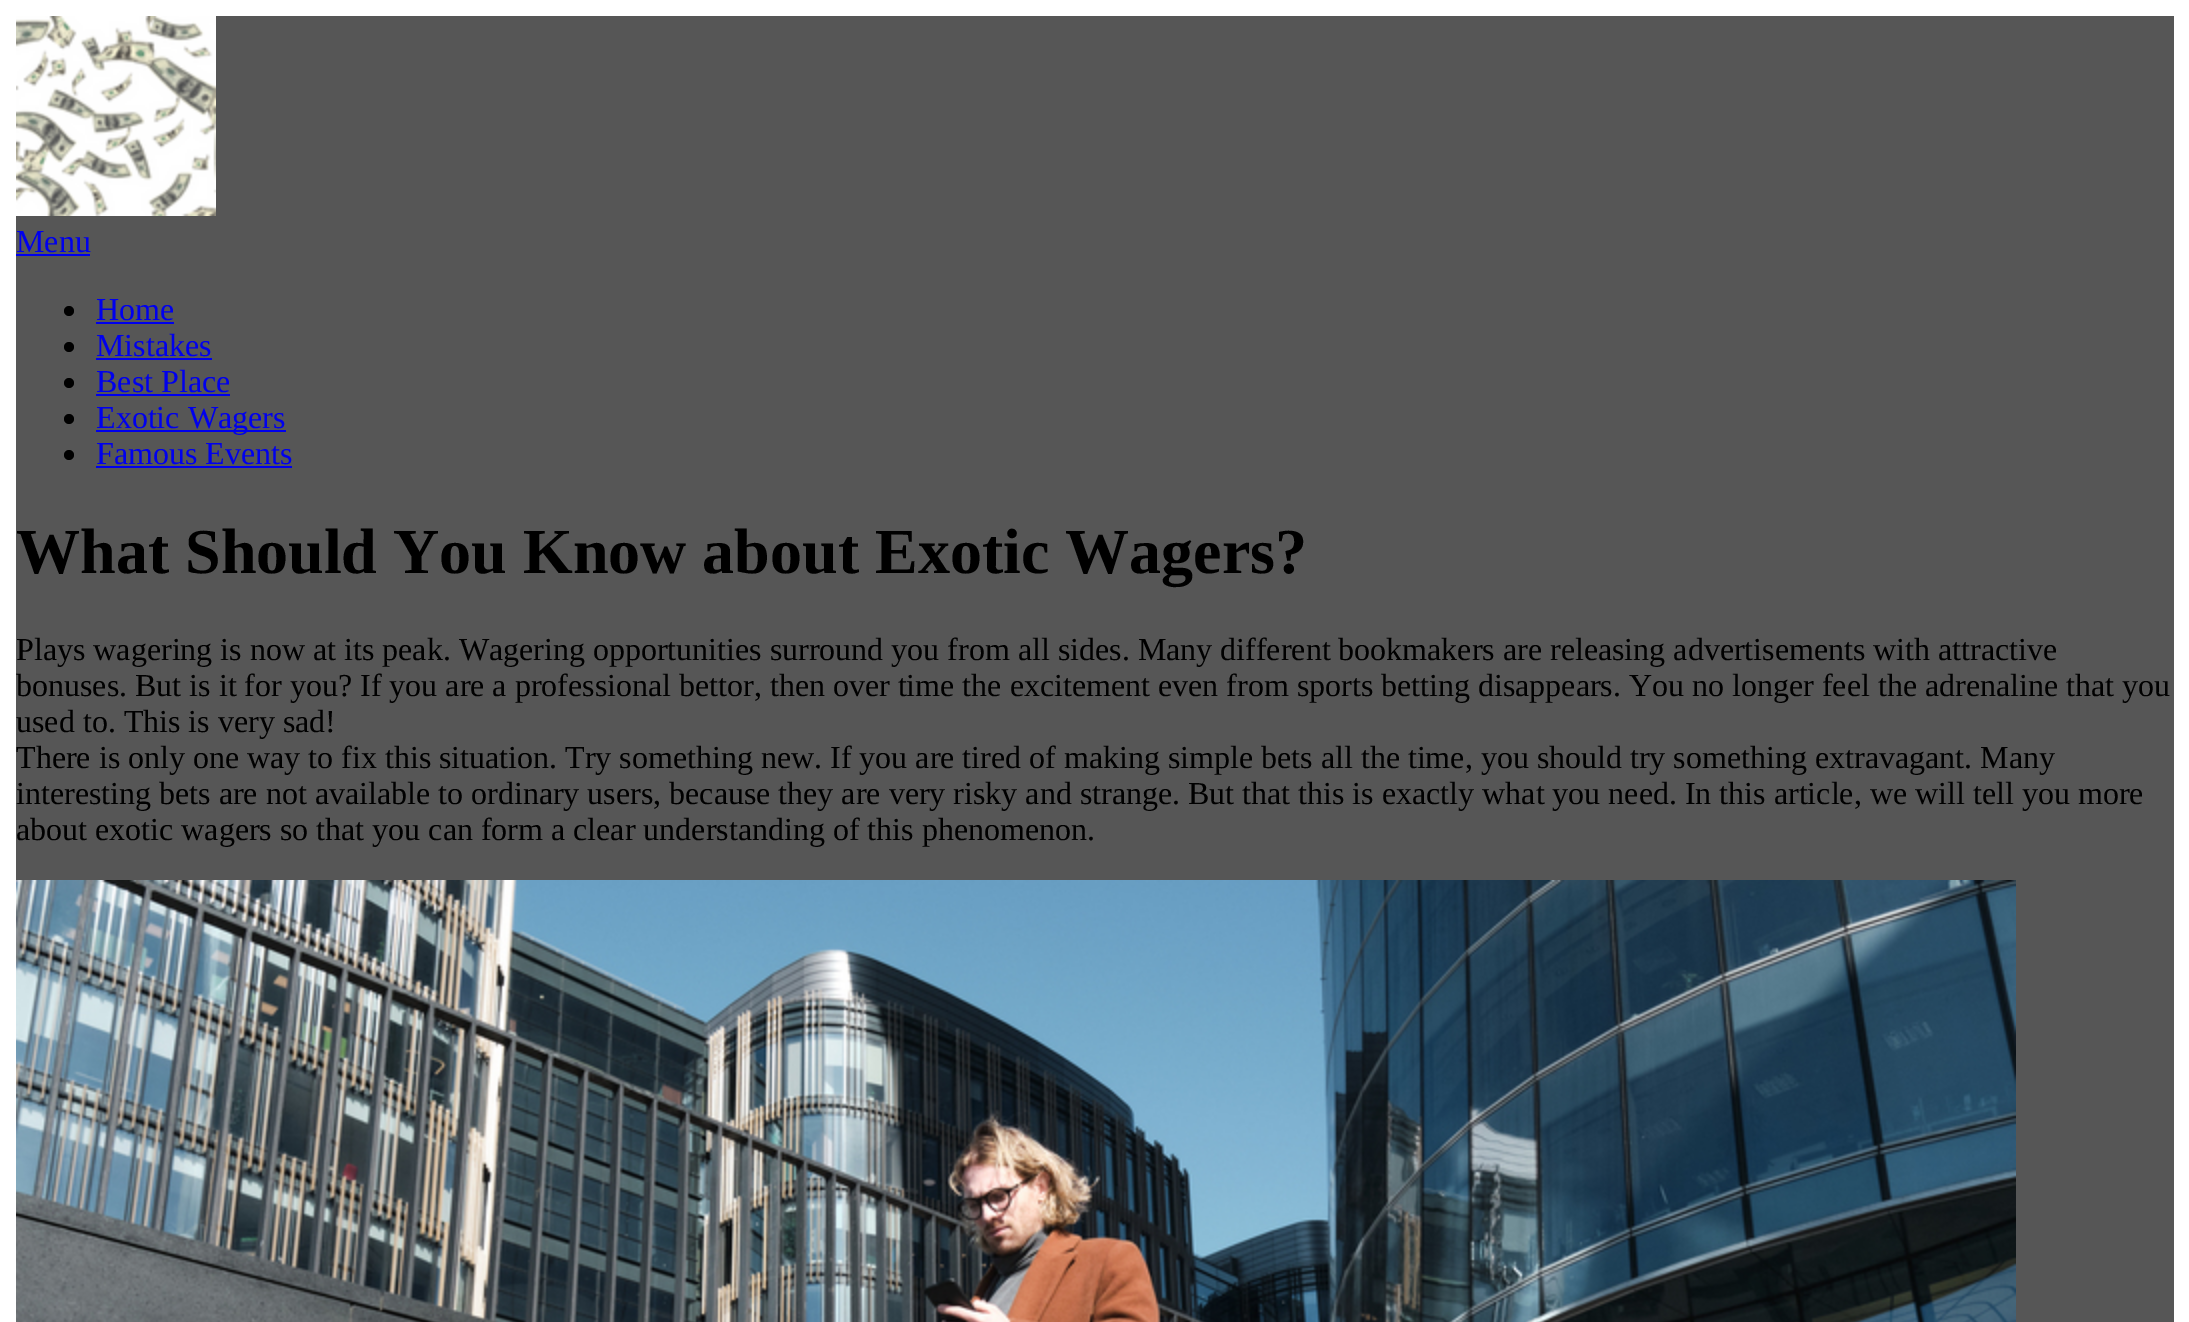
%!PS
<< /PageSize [2189 1322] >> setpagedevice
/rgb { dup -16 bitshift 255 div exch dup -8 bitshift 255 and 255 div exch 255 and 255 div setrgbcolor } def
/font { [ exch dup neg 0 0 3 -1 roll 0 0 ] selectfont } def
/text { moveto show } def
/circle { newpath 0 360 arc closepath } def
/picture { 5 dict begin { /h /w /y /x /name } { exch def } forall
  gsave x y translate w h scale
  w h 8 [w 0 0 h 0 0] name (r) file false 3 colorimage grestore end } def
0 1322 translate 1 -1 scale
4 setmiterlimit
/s1 { /LiberationSerif-Regular 32 font 16#0000EE rgb } def
/s2 { /LiberationSerif-Bold 64 font 16#000000 rgb } def
/s3 { /LiberationSerif-Regular 32 font 16#000000 rgb } def
16#FFFFFF rgb
0 0 2189 1322 rectfill
16#565656 rgb
16 16 2158 1306 rectfill
(pic1.raw) 16 16 200 200 picture
s1
(Menu) 16 252 text
16 254 74 2 rectfill
16#000000 rgb
69 311 5 circle fill
s1
(Home) 96 320 text
96 322 78 2 rectfill
16#000000 rgb
69 347 5 circle fill
s1
(Mistakes) 96 356 text
96 358 116 2 rectfill
16#000000 rgb
69 383 5 circle fill
s1
(Best Place) 96 392 text
96 394 134 2 rectfill
16#000000 rgb
69 419 5 circle fill
16#0000EE rgb
96 430 190 2 rectfill
(Exotic Wagers) 96 428 text
16#000000 rgb
69 455 5 circle fill
s1
(Famous Events) 96 464 text
96 466 196 2 rectfill
s2
(What Should You Know about Exotic Wagers?) 16 573 text
s3
(Plays wagering is now at its peak. Wagering opportunities surround you from all sides. Many different bookmakers are releasing advertisements with attractive) 16 660 text
(bonuses. But is it for you? If you are a professional bettor, then over time the excitement even from sports betting disappears. You no longer feel the adrenaline that you) 16 696 text
(used to. This is very sad!) 16 732 text
(There is only one way to fix this situation. Try something new. If you are tired of making simple bets all the time, you should try something extravagant. Many) 16 768 text
(interesting bets are not available to ordinary users, because they are very risky and strange. But that this is exactly what you need. In this article, we will tell you more) 16 804 text
(about exotic wagers so that you can form a clear understanding of this phenomenon.) 16 840 text
(pic2.raw) 16 880 2000 442 picture
showpage
